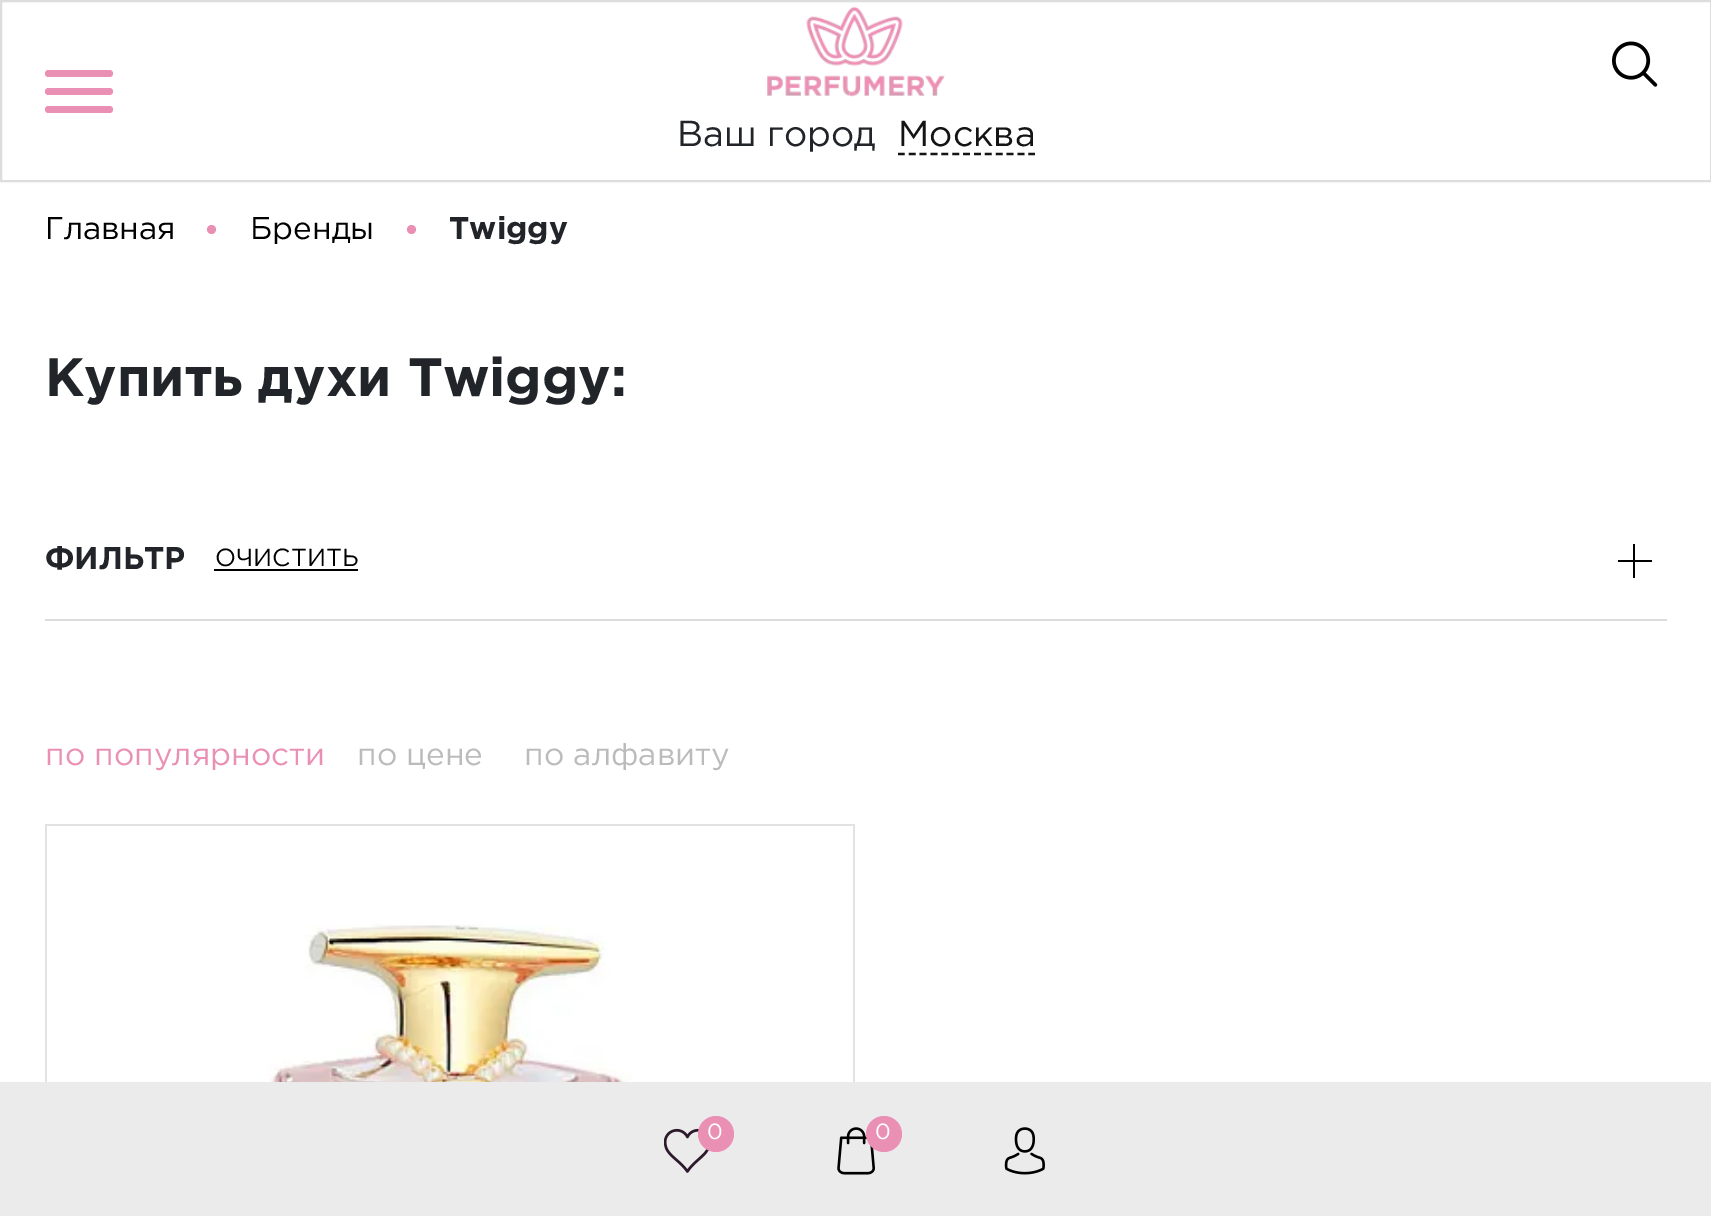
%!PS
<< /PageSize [1711 1216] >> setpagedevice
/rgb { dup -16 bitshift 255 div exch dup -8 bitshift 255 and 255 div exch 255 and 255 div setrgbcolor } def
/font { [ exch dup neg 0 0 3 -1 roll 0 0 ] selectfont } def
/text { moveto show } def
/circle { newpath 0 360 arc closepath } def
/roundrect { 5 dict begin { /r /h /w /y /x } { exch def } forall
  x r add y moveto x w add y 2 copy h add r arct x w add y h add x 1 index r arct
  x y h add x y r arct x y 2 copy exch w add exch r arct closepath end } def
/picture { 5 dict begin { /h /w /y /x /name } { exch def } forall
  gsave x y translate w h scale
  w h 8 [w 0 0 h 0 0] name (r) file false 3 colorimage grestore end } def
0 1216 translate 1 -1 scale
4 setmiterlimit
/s1 { /Gotham-Regular 31.5 font 16#000000 rgb } def
/s2 { /Gotham-Bold 31.5 font 16#212529 rgb } def
/s3 { /Gotham-Bold 54 font 16#212529 rgb } def
/s4 { /Gotham-Regular 24.75 font 16#000000 rgb } def
/s5 { /Gotham-Regular 31.5 font 16#EB90B5 rgb } def
/s6 { /Gotham-Regular 31.5 font 16#BBBBBB rgb } def
/s7 { /Gotham-Regular 36 font 16#212529 rgb } def
/s8 { /Gotham-Regular 36 font 16#151414 rgb } def
/s9 { /Gotham-Regular 22 font 16#FFFFFF rgb } def
16#FFFFFF rgb
0 0 1711 1216 rectfill
s1
(Главная) 45 239 text
16#EB90B5 rgb
211.5 229.5 4.5 circle fill
s1
(Бренды) 250 239 text
16#EB90B5 rgb
411.5 229.5 4.5 circle fill
s2
(Twiggy) 449 239 text
s3
(Купить духи Twiggy:) 45 396 text
16#DDDDDD rgb
45 619 1622 2 rectfill
s2
(ФИЛЬТР) 45 569 text
s4
(ОЧИСТИТЬ) 215 566 text
214 569 144 2 rectfill
1618 560 34 2 rectfill
1633 544 2 34 rectfill
s5
(по популярности) 45 765 text
s6
(по цене) 357 765 text
(по алфавиту) 524 765 text
16#E2E2E2 rgb
45 826 2 256 rectfill
45 824 810 2 rectfill
853 824 2 258 rectfill
(pic1.raw) 261 924 373 158 picture
16#DDDDDD rgb
2 setlinewidth
1 1 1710 180 rectstroke
(pic2.raw) 1612 41 46 46 picture
16#EB90B5 rgb
45 88 68 7 3.5 roundrect fill
45 70 68 7 3.5 roundrect fill
45 106 68 7 3.5 roundrect fill
(pic3.raw) 767 6 178 91 picture
s7
(Ваш город) 677 146 text
s8
(Москва) 898 146 text
2.2 setlinewidth
[6.75 4.12] 0 setdash
898 154 moveto 1035 154 lineto stroke
16#EBEBEB rgb
0 1082 1711 134 rectfill
(pic4.raw) 664 1128 45 45 picture
16#EB90B5 rgb
716 1134 18 circle fill
s9
(0) 707 1139 text
(pic5.raw) 837 1127 38 48 picture
16#EB90B5 rgb
884 1134 18 circle fill
s9
(0) 875 1139 text
(pic6.raw) 1004 1127 41 48 picture
showpage
